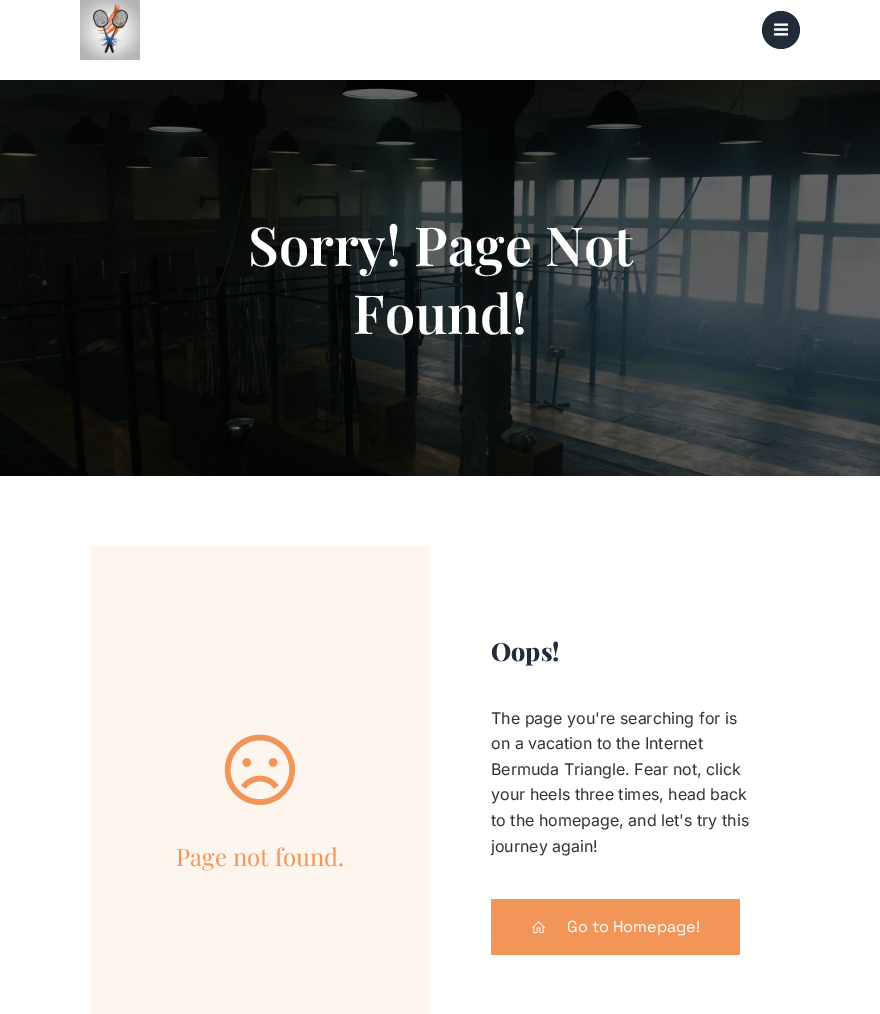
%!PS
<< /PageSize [880 1014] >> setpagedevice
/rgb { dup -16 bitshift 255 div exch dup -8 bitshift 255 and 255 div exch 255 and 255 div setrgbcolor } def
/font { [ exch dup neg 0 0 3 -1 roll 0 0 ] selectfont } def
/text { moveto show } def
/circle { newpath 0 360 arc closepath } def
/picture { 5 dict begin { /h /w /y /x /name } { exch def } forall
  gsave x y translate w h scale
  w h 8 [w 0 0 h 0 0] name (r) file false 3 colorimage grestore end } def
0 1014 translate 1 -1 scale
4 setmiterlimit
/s1 { /PlayfairDisplay-SemiBold 54 font 16#FFFFFF rgb } def
/s2 { /PlayfairDisplay-Regular 24 font 16#F29559 rgb } def
/s3 { /PlayfairDisplay-ExtraBold 25 font 16#202C39 rgb } def
/s4 { /Inter-Regular 16 font 16#323232 rgb } def
/s5 { /SpaceGrotesk-Regular 16 font 16#FFFFFF rgb } def
16#FFFFFF rgb
0 0 880 1014 rectfill
(pic1.raw) 80 0 60 60 picture
16#202C39 rgb
781 30 19 circle fill
(pic2.raw) 774 23 14 13 picture
(pic3.raw) 0 80 880 396 picture
s1
(Sorry! Page Not) 248 266 text
(Found!) 353 334 text
16#FEF5EF rgb
90 546 340 468 rectfill
(pic4.raw) 224 734 72 71 picture
s2
(Page not found.) 176 866 text
s3
(Oops!) 491 661 text
s4
(The page you're searching for is) 491 724 text
(on a vacation to the Internet) 491 749 text
(Bermuda Triangle. Fear not, click) 491 775 text
(your heels three times, head back) 491 800 text
(to the homepage, and let's try this) 491 826 text
(journey again!) 491 852 text
16#F29559 rgb
491 899 249 56 rectfill
(pic5.raw) 532 921 13 13 picture
s5
(Go to Homepage!) 567 932 text
showpage
